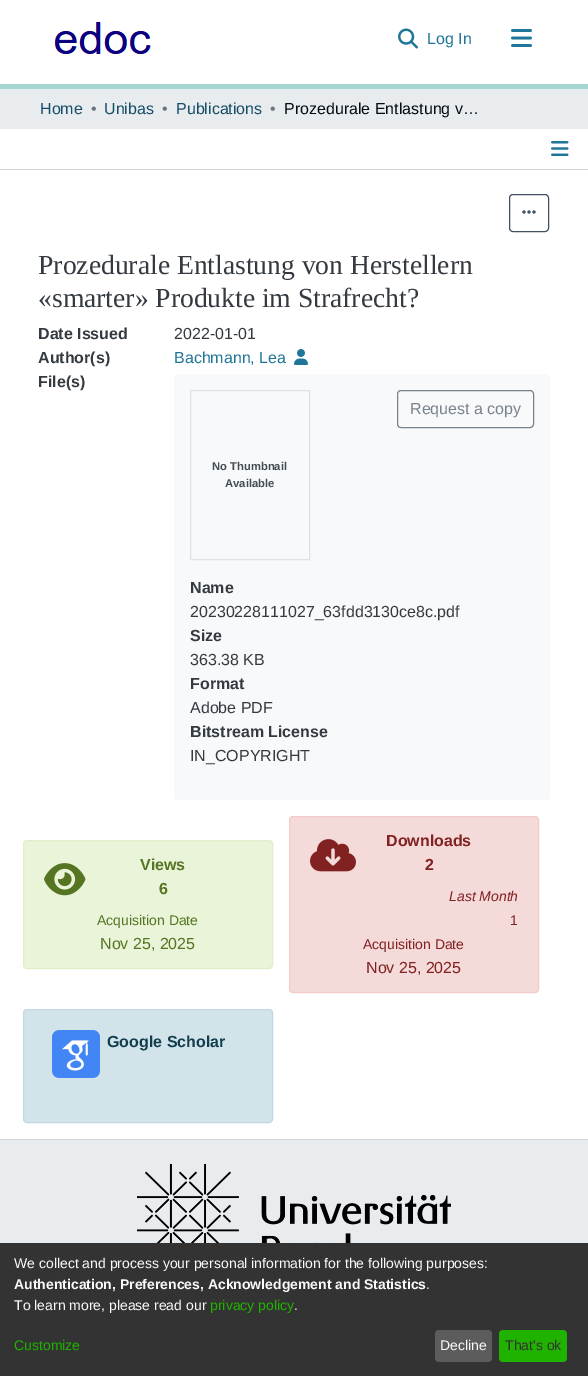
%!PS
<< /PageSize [588 1376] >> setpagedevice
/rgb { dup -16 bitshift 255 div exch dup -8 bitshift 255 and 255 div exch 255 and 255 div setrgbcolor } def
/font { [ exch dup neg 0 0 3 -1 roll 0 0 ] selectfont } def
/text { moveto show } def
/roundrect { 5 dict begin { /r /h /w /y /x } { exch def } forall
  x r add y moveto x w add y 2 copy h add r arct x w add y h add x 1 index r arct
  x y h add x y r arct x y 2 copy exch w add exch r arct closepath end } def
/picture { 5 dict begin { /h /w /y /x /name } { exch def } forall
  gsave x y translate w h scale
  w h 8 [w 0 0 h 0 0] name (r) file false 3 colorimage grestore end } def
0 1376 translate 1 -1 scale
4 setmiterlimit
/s1 { /LiberationSans-Regular 16 font 16#207698 rgb } def
/s2 { /LiberationSans-Regular 16 font 16#154E66 rgb } def
/s3 { /LiberationSans-Regular 16 font 16#6C757D rgb } def
/s4 { /LiberationSans-Regular 16 font 16#040D11 rgb } def
/s5 { /LiberationSerif-Regular 27.6 font 16#343A40 rgb } def
/s6 { /LiberationSans-Bold 16 font 16#343A40 rgb } def
/s7 { /LiberationSans-Regular 16 font 16#343A40 rgb } def
/s8 { /LiberationSans-Regular 16 font 16#79838E rgb } def
/s9 { /LiberationSans-Bold 11.25 font 16#444C54 rgb } def
/s10 { /LiberationSans-Bold 16 font 16#557523 rgb } def
/s11 { /LiberationSans-Regular 14 font 16#557523 rgb } def
/s12 { /LiberationSans-Regular 16 font 16#557523 rgb } def
/s13 { /LiberationSans-Bold 16 font 16#822121 rgb } def
/s14 { /LiberationSans-Italic 14 font 16#822121 rgb } def
/s15 { /LiberationSans-Regular 14 font 16#822121 rgb } def
/s16 { /LiberationSans-Regular 16 font 16#822121 rgb } def
/s17 { /LiberationSans-Bold 16 font 16#113D4F rgb } def
/s18 { /LiberationSans-Regular 14 font 16#FAFAFA rgb } def
/s19 { /LiberationSans-Bold 14 font 16#FAFAFA rgb } def
/s20 { /LiberationSans-Regular 14 font 16#1FB300 rgb } def
/s21 { /LiberationSans-Regular 14 font 16#333333 rgb } def
16#FFFFFF rgb
0 0 588 1376 rectfill
16#A5D7D2 rgb
0 84 588 5 rectfill
(pic1.raw) 54 22 97 32 picture
(pic2.raw) 398 28 20 21 picture
s1
(Log In) 427 44 text
(pic3.raw) 511 29 21 18 picture
16#E9ECEF rgb
0 89 588 40 rectfill
s2
(Home) 40 114 text
s3
(•) 91 114 text
s2
(Unibas) 104 114 text
s3
(•) 162 114 text
s2
(Publications) 176 114 text
s3
(•) 270 114 text
s4
(Prozedurale Entlastung v…) 284 114 text
(pic4.raw) 551 141 18 15 picture
16#CED4DA rgb
0 169 588 1 rectfill
16#43515F rgb
509.5 194.5 39 37 3.5 roundrect stroke
(pic5.raw) 522 210 14 4 picture
s5
(Prozedurale Entlastung von Herstellern) 38 274 text
(«smarter» Produkte im Strafrecht?) 38 307 text
s6
(Date Issued) 38 339 text
s7
(2022-01-01) 174 339 text
s6
(Author\(s\)) 38 363 text
s1
(Bachmann, Lea) 174 363 text
(pic6.raw) 294 349 14 16 picture
s6
(File\(s\)) 38 387 text
16#F8F9FA rgb
174 374 376 426 4 roundrect fill
16#79838E rgb
397.5 390.5 136 37 3.5 roundrect stroke
s8
(Request a copy) 410 414 text
16#DEE2E6 rgb
190.5 390.5 119 169 rectstroke
s9
(No Thumbnail) 212 470 text
(Available) 225 487 text
s6
(Name) 190 593 text
s7
(20230228111027_63fdd3130ce8c.pdf) 190 617 text
s6
(Size) 190 641 text
s7
(363.38 KB) 190 665 text
s6
(Format) 190 689 text
s7
(Adobe PDF) 190 713 text
s6
(Bitstream License) 190 737 text
s7
(IN_COPYRIGHT) 190 761 text
16#E9F4D9 rgb
23.5 840.5 249 128 3.5 roundrect gsave fill grestore
16#E0EFCA rgb
stroke
(pic7.raw) 44 863 42 33 picture
s10
(Views) 140 870 text
(6) 159 894 text
s11
(Acquisition Date) 97 925 text
s12
(Nov 25, 2025) 100 949 text
16#F5DADA rgb
289.5 816.5 249 176 3.5 roundrect gsave fill grestore
16#F2CBCB rgb
stroke
(pic8.raw) 310 839 46 33 picture
s13
(Downloads) 386 846 text
(2) 425 870 text
s14
(Last Month) 449 901 text
s15
(1) 510 925 text
(Acquisition Date) 363 949 text
s16
(Nov 25, 2025) 366 973 text
16#D2E4EA rgb
23.5 1009.5 249 113 3.5 roundrect gsave fill grestore
16#C1D9E2 rgb
stroke
(pic9.raw) 52 1030 48 48 picture
s17
(Google Scholar) 107 1047 text
16#CED4DA rgb
0 1139 588 1 rectfill
16#E9ECEF rgb
0 1140 588 103 rectfill
(pic10.raw) 137 1164 314 79 picture
16#333333 rgb
0 1243 588 133 rectfill
s18
(We collect and process your personal information for the following purposes:) 14 1268 text
s19
(Authentication, Preferences, Acknowledgement and Statistics) 14 1289 text
s18
(.) 426 1289 text
(To learn more, please read our) 14 1310 text
s20
(privacy policy) 210 1310 text
s18
(.) 294 1310 text
s20
(Customize) 14 1350 text
16#5C5C5C rgb
435 1330 57 32 4 roundrect fill
s18
(Decline) 440 1350 text
16#1FB300 rgb
499 1330 68 32 4 roundrect fill
s21
(That's ok) 505 1350 text
showpage
